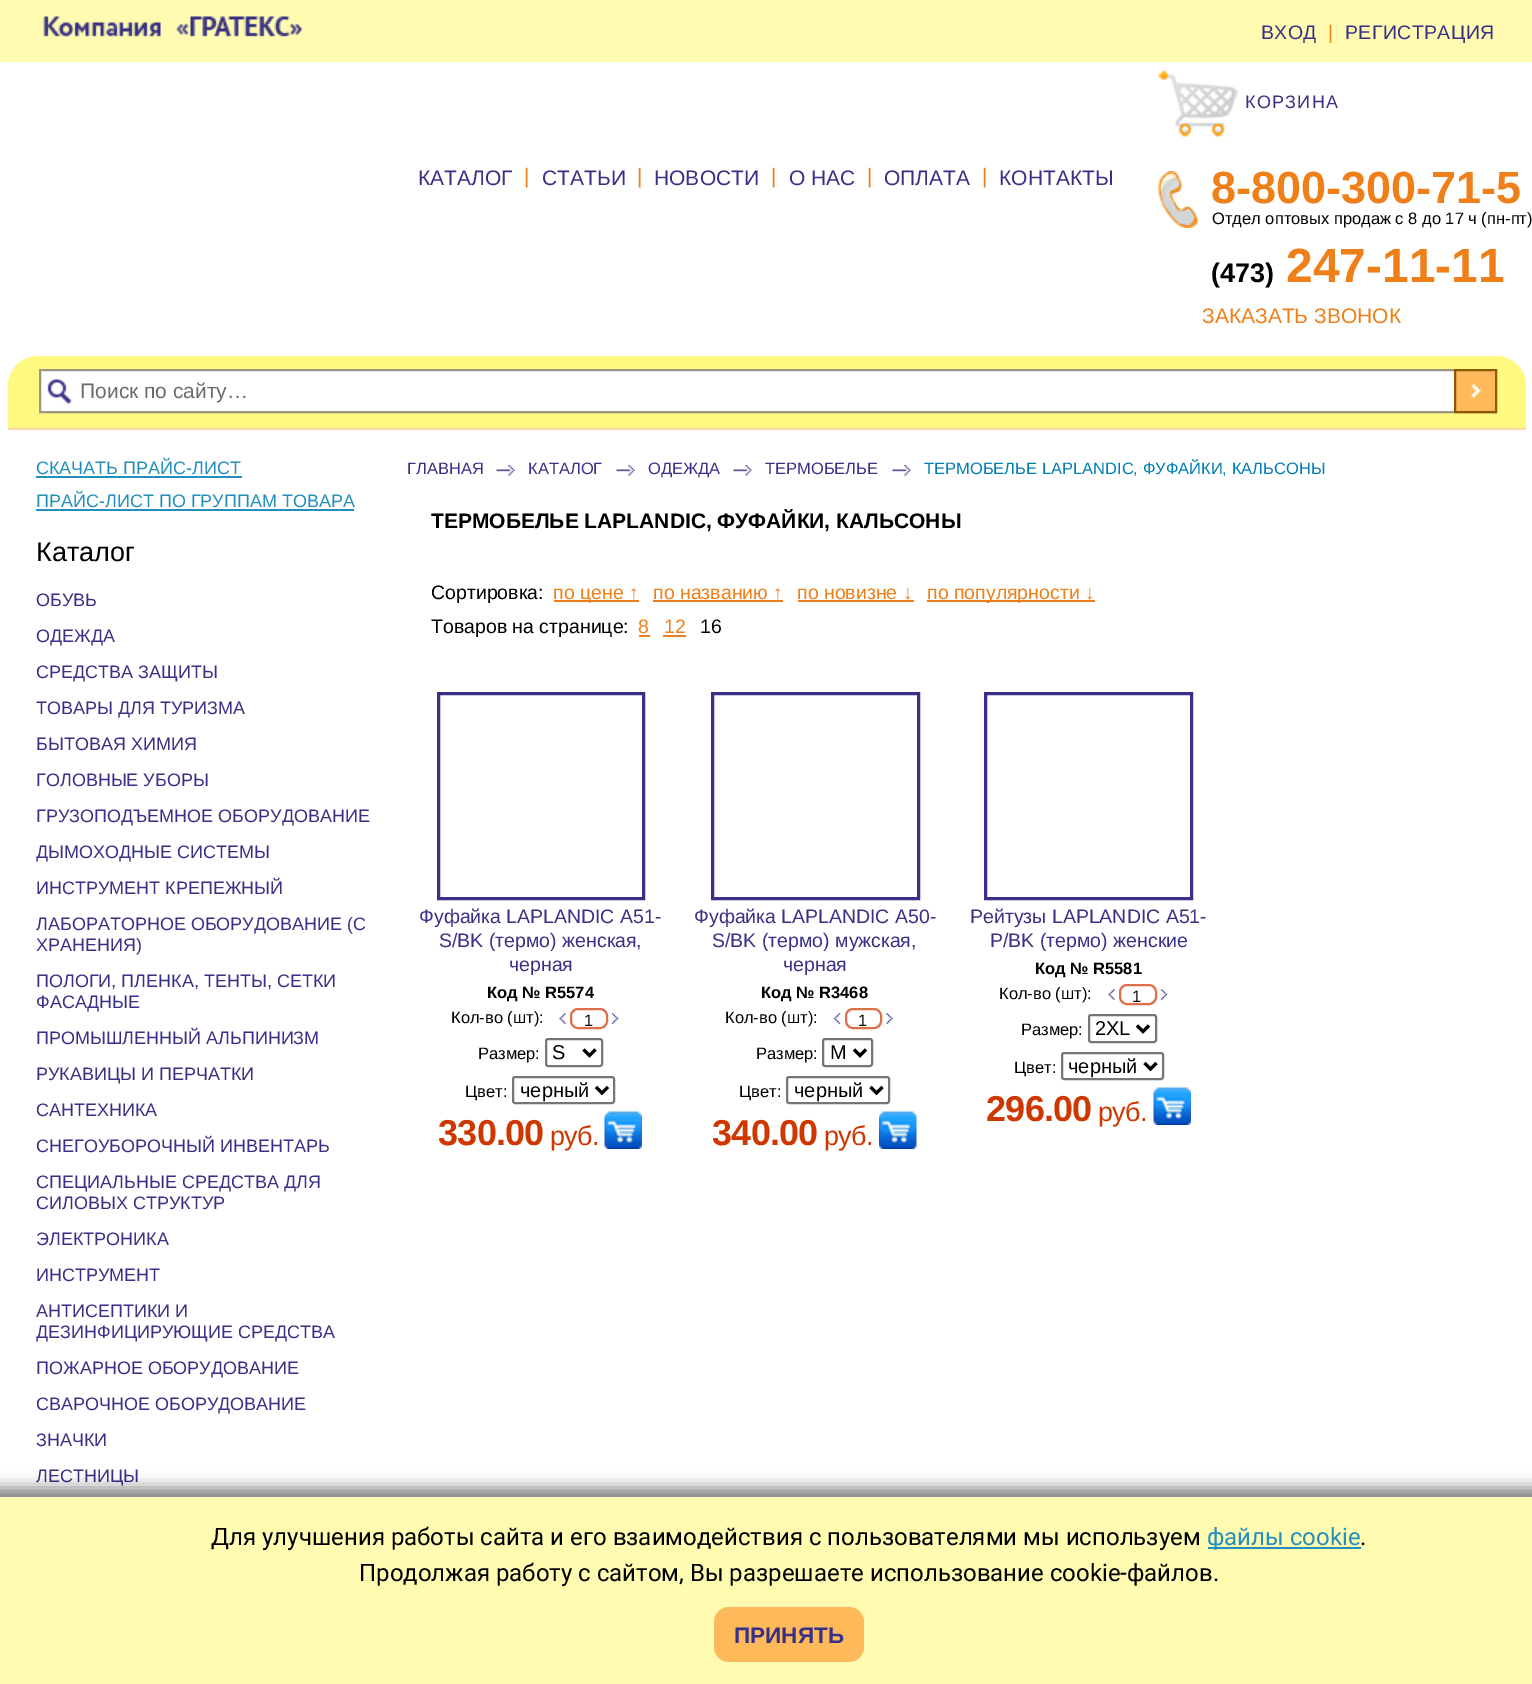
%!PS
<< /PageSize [1532 1684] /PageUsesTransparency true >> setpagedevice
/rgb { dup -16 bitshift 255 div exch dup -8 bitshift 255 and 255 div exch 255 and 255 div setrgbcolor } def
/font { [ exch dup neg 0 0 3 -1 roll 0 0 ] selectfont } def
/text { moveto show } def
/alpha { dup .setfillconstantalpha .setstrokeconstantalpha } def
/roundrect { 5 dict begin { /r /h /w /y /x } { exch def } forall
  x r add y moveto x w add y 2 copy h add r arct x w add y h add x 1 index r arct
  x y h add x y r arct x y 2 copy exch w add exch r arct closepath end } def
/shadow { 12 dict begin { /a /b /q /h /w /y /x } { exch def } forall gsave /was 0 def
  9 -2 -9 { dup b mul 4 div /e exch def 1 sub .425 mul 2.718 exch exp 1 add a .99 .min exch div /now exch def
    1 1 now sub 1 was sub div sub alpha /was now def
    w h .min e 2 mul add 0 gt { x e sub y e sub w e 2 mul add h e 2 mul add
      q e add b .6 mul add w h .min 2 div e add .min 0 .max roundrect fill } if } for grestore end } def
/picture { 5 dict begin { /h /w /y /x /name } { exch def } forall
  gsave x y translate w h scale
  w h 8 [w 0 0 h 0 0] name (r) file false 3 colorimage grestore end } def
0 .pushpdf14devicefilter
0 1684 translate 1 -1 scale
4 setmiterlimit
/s1 { /LiberationSans-Regular 19.5 font 16#EF7F19 rgb } def
/s2 { /LiberationSans-Regular 21 font 16#393185 rgb } def
/s3 { /LiberationSans-Regular 21 font 16#EF7F19 rgb } def
/s4 { /LiberationSans-Bold 45 font 16#EF7F19 rgb } def
/s5 { /LiberationSans-Regular 16.5 font 16#000000 rgb } def
/s6 { /LiberationSans-Bold 27 font 16#000000 rgb } def
/s7 { /LiberationSans-Bold 48 font 16#EF7F19 rgb } def
/s8 { /LiberationSans-Regular 21 font 16#6B6B6B rgb } def
/s9 { /LiberationSans-Regular 18 font 16#238FBC rgb } def
/s10 { /LiberationSans-Regular 27 font 16#000000 rgb } def
/s11 { /LiberationSans-Regular 18 font 16#393185 rgb } def
/s12 { /LiberationSans-Regular 16.5 font 16#393185 rgb } def
/s13 { /LiberationSans-Regular 16.5 font 16#017EB2 rgb } def
/s14 { /LiberationSans-Bold 21 font 16#000000 rgb } def
/s15 { /LiberationSans-Regular 19.5 font 16#000000 rgb } def
/s16 { /LiberationSans-Regular 19.5 font 16#393185 rgb } def
/s17 { /LiberationSans-Bold 16.5 font 16#000000 rgb } def
/s18 { /LiberationSans-Regular 20 font 16#000000 rgb } def
/s19 { /Roboto-Regular 24 font 16#000000 rgb } def
/s20 { /Roboto-Regular 24 font 16#238FBC rgb } def
/s21 { /LiberationSans-Bold 22.5 font 16#393185 rgb } def
16#FFFFFF rgb
0 0 1532 1684 rectfill
16#FFFCB2 rgb
0 0 1532 62 rectfill
(pic1.raw) 43 16 260 21 picture
/LiberationSans-Regular 19.5 font
16#393185 rgb
1261 39 moveto 0.4 0 (ВХОД) ashow
s1
(|) 1328 39 text
16#393185 rgb
1345 39 moveto 0.4 0 (РЕГИСТРАЦИЯ) ashow
s2
(КАТАЛОГ) 418 185 text
s3
(|) 524 183 text
s2
(СТАТЬИ) 542 185 text
s3
(|) 637 183 text
s2
(НОВОСТИ) 654 185 text
s3
(|) 771 183 text
s2
(О НАС) 789 185 text
s3
(|) 867 183 text
s2
(ОПЛАТА) 884 185 text
s3
(|) 982 183 text
s2
(КОНТАКТЫ) 999 185 text
(pic2.raw) 1157 70 81 67 picture
/LiberationSans-Regular 18 font
1245 108 moveto 1.25 0 (КОРЗИНА) ashow
(pic3.raw) 1158 171 41 57 picture
s4
(8-800-300-71-5) 1211 203 text
s5
(Отдел оптовых продаж с 8 до 17 ч \(пн-пт\)) 1212 224 text
s6
(\(473\)) 1211 282 text
s7
(247-11-11) 1286 282 text
s3
(ЗАКАЗАТЬ ЗВОНОК) 1202 323 text
16#FFFA7F rgb
38 356 moveto 1496 356 lineto 1512.5 356 1526 369.5 1526 386 curveto 1526 429 lineto 8 429 lineto 8 386 lineto 8 369.5 21.5 356 38 356 curveto closepath fill
16#FAD9B3 rgb
8 428 1518 2 rectfill
16#FFFFFF rgb
41 371 1413 40 rectfill
(pic4.raw) 47 379 25 25 picture
gsave
36 356 1461 72 rectclip
16#9C9582 rgb
2 setlinewidth
40 370 1462 42 rectstroke
grestore
s8
(Поиск по сайту…) 80 398 text
16#FEBA5A rgb
1456 371 39 40 rectfill
(pic5.raw) 1471 383 10 15 picture
16#8F5903 rgb
2 setlinewidth
1455 370 41 42 rectstroke
s9
(СКАЧАТЬ ПРАЙС-ЛИСТ) 36 474 text
36 476 206 2 rectfill
(ПРАЙС-ЛИСТ ПО ГРУППАМ ТОВАРА) 36 507 text
36 509 318 2 rectfill
s10
(Каталог) 36 561 text
s11
(ОБУВЬ) 36 606 text
(ОДЕЖДА) 36 642 text
(СРЕДСТВА ЗАЩИТЫ) 36 678 text
(ТОВАРЫ ДЛЯ ТУРИЗМА) 36 714 text
(БЫТОВАЯ ХИМИЯ) 36 750 text
(ГОЛОВНЫЕ УБОРЫ) 36 786 text
(ГРУЗОПОДЪЕМНОЕ ОБОРУДОВАНИЕ) 36 822 text
(ДЫМОХОДНЫЕ СИСТЕМЫ) 36 858 text
(ИНСТРУМЕНТ КРЕПЕЖНЫЙ) 36 894 text
(ЛАБОРАТОРНОЕ ОБОРУДОВАНИЕ \(С) 36 930 text
(ХРАНЕНИЯ\)) 36 951 text
(ПОЛОГИ, ПЛЕНКА, ТЕНТЫ, СЕТКИ) 36 987 text
(ФАСАДНЫЕ) 36 1008 text
(ПРОМЫШЛЕННЫЙ АЛЬПИНИЗМ) 36 1044 text
(РУКАВИЦЫ И ПЕРЧАТКИ) 36 1080 text
(САНТЕХНИКА) 36 1116 text
(СНЕГОУБОРОЧНЫЙ ИНВЕНТАРЬ) 36 1152 text
(СПЕЦИАЛЬНЫЕ СРЕДСТВА ДЛЯ) 36 1188 text
(СИЛОВЫХ СТРУКТУР) 36 1209 text
(ЭЛЕКТРОНИКА) 36 1245 text
(ИНСТРУМЕНТ) 36 1281 text
(АНТИСЕПТИКИ И) 36 1317 text
(ДЕЗИНФИЦИРУЮЩИЕ СРЕДСТВА) 36 1338 text
(ПОЖАРНОЕ ОБОРУДОВАНИЕ) 36 1374 text
(СВАРОЧНОЕ ОБОРУДОВАНИЕ) 36 1410 text
(ЗНАЧКИ) 36 1446 text
(ЛЕСТНИЦЫ) 36 1482 text
s12
(ГЛАВНАЯ) 407 474 text
(pic6.raw) 496 465 19 11 picture
(КАТАЛОГ) 528 474 text
(pic7.raw) 616 465 19 11 picture
(ОДЕЖДА) 648 474 text
(pic7.raw) 733 465 19 11 picture
(ТЕРМОБЕЛЬЕ) 765 474 text
(pic6.raw) 892 465 19 11 picture
s13
(ТЕРМОБЕЛЬЕ LAPLANDIC, ФУФАЙКИ, КАЛЬСОНЫ) 924 474 text
s14
(ТЕРМОБЕЛЬЕ LAPLANDIC, ФУФАЙКИ, КАЛЬСОНЫ) 431 528 text
s15
(Сортировка:) 431 599 text
16#EB7D1B rgb
554 600 85 2 rectfill
s1
(по цене ↑) 553 599 text
(по названию ↑) 653 599 text
16#EB7D1B rgb
653 600 130 2 rectfill
s1
(по новизне ↓) 797 599 text
16#EB7D1B rgb
798 600 116 2 rectfill
927 600 168 2 rectfill
s1
(по популярности ↓) 927 599 text
s15
(Товаров на странице:) 431 633 text
s1
(8) 638 633 text
16#EB7D1B rgb
639 635 11 2 rectfill
s1
(12) 664 633 text
16#EB7D1B rgb
663 635 23 2 rectfill
s15
(16) 700 633 text
16#393185 rgb
3 setlinewidth
438.5 693.5 205 205 rectstroke
(Фуфайка LAPLANDIC A51-) 419 923 text
(S/BK \(термо\) женская,) 439 947 text
(черная) 509 971 text
s17
(Код № R5574) 487 998 text
s5
(Кол-во \(шт\):) 451 1023 text
(pic8.raw) 559 1013 7 11 picture
16#DD7049 rgb
2 setlinewidth
571 1009 36 19 7 roundrect stroke
s5
(1) 584 1026 text
(pic9.raw) 611 1013 8 11 picture
(Размер:) 478 1059 text
16#767676 rgb
546 1039 56 27 2 roundrect stroke
16#000000 rgb
3 setlinewidth
583.5 1049.5 moveto 589.5 1055.5 lineto 595.5 1049.5 lineto stroke
s18
(S) 552 1059 text
s5
(Цвет:) 465 1097 text
16#767676 rgb
2 setlinewidth
513 1077 101 26 2 roundrect stroke
16#000000 rgb
3 setlinewidth
596 1087 moveto 602 1093 lineto 608 1087 lineto stroke
s18
(черный) 520 1097 text
/LiberationSans-Bold 36 font
16#CF3700 rgb
438 1145 moveto -0.75 0 (330.00) ashow
/LiberationSans-Regular 27 font
550 1145 moveto -0.75 0 (руб.) ashow
(pic10.raw) 604 1111 38 38 picture
16#393185 rgb
712.5 693.5 206 205 rectstroke
s16
(Фуфайка LAPLANDIC A50-) 694 923 text
(S/BK \(термо\) мужская,) 712 947 text
(черная) 783 971 text
s17
(Код № R3468) 761 998 text
s5
(Кол-во \(шт\):) 725 1023 text
(pic11.raw) 833 1013 8 11 picture
16#DD7049 rgb
2 setlinewidth
846 1009 35 19 7 roundrect stroke
s5
(1) 858 1026 text
(pic12.raw) 886 1013 7 11 picture
(Размер:) 756 1059 text
16#767676 rgb
823 1039 49 27 2 roundrect stroke
16#000000 rgb
3 setlinewidth
854 1049.5 moveto 860 1055.5 lineto 866 1049.5 lineto stroke
s18
(M) 830 1059 text
s5
(Цвет:) 739 1097 text
16#767676 rgb
2 setlinewidth
787 1077 102 26 2 roundrect stroke
16#000000 rgb
3 setlinewidth
870.5 1087 moveto 876.5 1093 lineto 882.5 1087 lineto stroke
s18
(черный) 794 1097 text
/LiberationSans-Bold 36 font
16#CF3700 rgb
712 1145 moveto -0.75 0 (340.00) ashow
/LiberationSans-Regular 27 font
824 1145 moveto -0.75 0 (руб.) ashow
(pic13.raw) 879 1111 38 38 picture
16#393185 rgb
985.5 693.5 206 205 rectstroke
s16
(Рейтузы LAPLANDIC A51-) 970 923 text
(P/BK \(термо\) женские) 990 947 text
s17
(Код № R5581) 1035 974 text
s5
(Кол-во \(шт\):) 999 999 text
(pic8.raw) 1108 989 7 11 picture
16#DD7049 rgb
2 setlinewidth
1120 985 36 19 7 roundrect stroke
s5
(1) 1132 1002 text
(pic9.raw) 1160 989 8 11 picture
(Размер:) 1021 1035 text
16#767676 rgb
1089 1015 67 27 2 roundrect stroke
16#000000 rgb
3 setlinewidth
1137 1025.5 moveto 1143 1031.5 lineto 1149 1025.5 lineto stroke
s18
(2XL) 1095 1035 text
s5
(Цвет:) 1014 1073 text
16#767676 rgb
2 setlinewidth
1062 1053 101 26 2 roundrect stroke
16#000000 rgb
3 setlinewidth
1144.5 1063 moveto 1150.5 1069 lineto 1156.5 1063 lineto stroke
s18
(черный) 1068 1073 text
/LiberationSans-Bold 36 font
16#CF3700 rgb
986 1121 moveto -0.75 0 (296.00) ashow
/LiberationSans-Regular 27 font
1098 1121 moveto -0.75 0 (руб.) ashow
(pic10.raw) 1153 1087 38 38 picture
16#000000 rgb
-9 1488 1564 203 0 7.5 0.5 shadow
16#FFFCB2 rgb
0 1497 1532 187 rectfill
s19
(Для улучшения работы сайта и его взаимодействия с пользователями мы используем) 211 1545 text
16#238FBC rgb
1208 1547 153 2 rectfill
(файлы cookie) 1207 1545 text
s19
(.) 1360 1545 text
(Продолжая работу с сайтом, Вы разрешаете использование cookie-файлов.) 359 1581 text
16#FEBA5A rgb
714 1607 150 55 15 roundrect fill
s21
(ПРИНЯТЬ) 734 1643 text
.poppdf14devicefilter showpage
